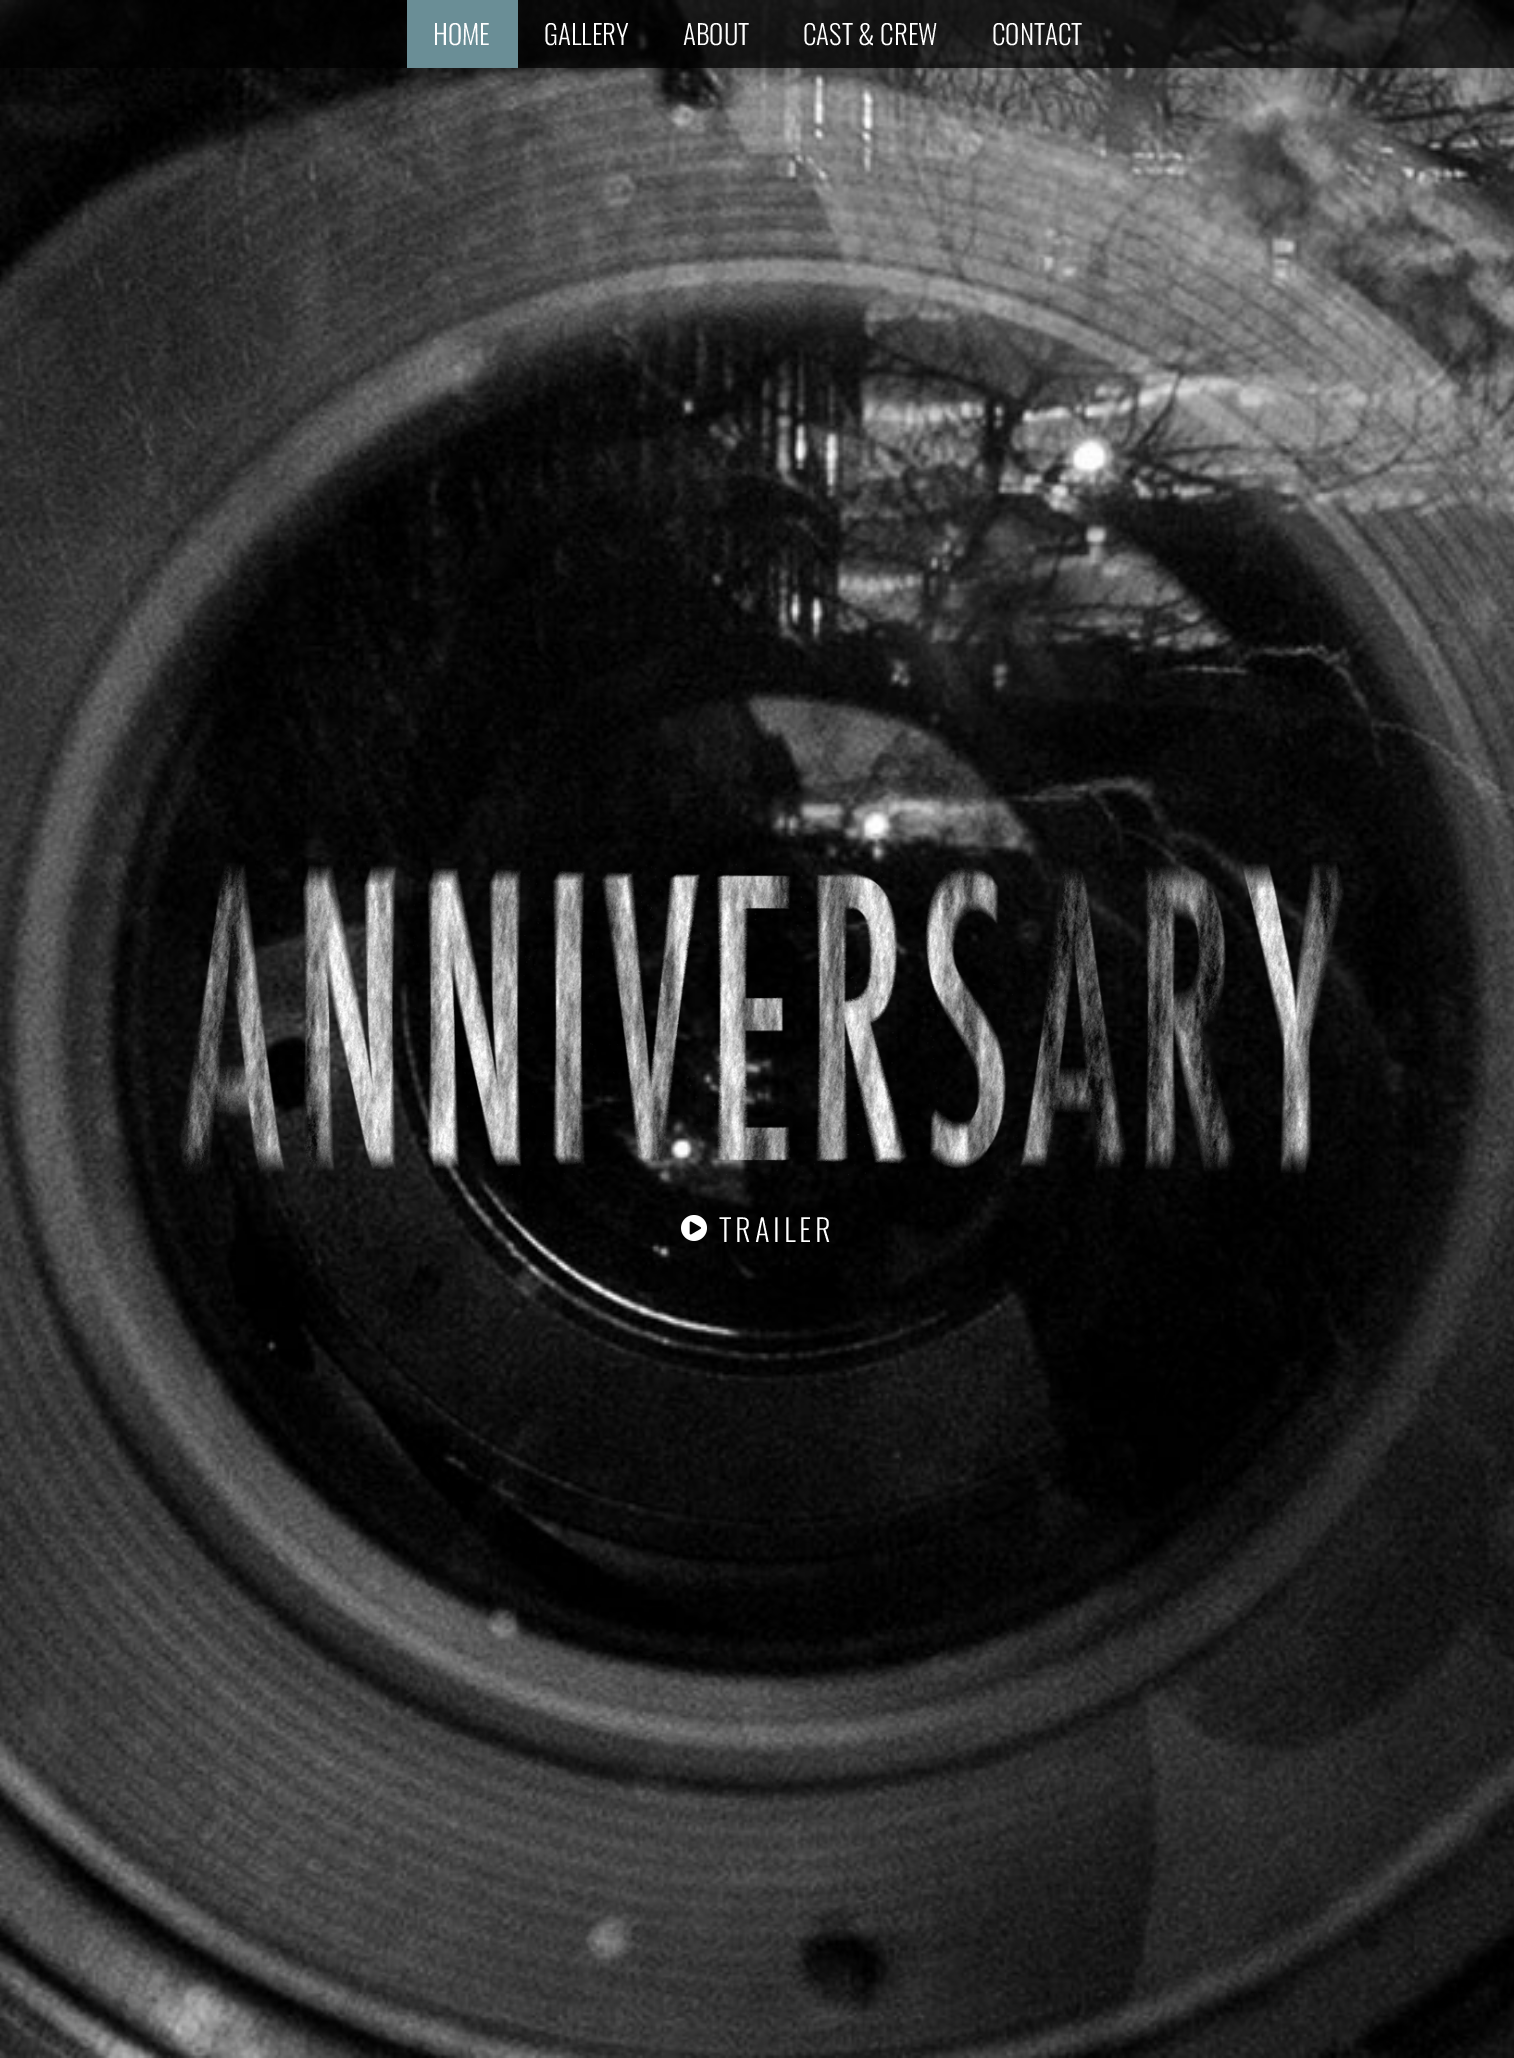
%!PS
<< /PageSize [1514 2058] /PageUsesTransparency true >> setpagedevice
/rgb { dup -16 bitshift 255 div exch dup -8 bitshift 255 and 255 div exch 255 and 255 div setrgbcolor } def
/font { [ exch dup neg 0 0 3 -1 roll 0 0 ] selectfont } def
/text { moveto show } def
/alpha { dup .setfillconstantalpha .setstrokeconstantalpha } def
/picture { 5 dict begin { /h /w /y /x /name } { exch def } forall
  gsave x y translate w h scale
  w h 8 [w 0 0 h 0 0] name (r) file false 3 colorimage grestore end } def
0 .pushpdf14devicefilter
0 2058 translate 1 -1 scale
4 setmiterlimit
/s1 { /Oswald-Light 27 font 16#FFFFFF rgb } def
16#FFFFFF rgb
0 0 1514 2058 rectfill
(pic1.raw) 0 0 1514 2058 picture
0.75 alpha
16#000000 rgb
0 0 1514 68 rectfill
1 alpha
16#6A8E96 rgb
407 0 111 68 rectfill
s1
(HOME) 433 45 text
(GALLERY) 544 45 text
(ABOUT) 683 45 text
(CAST & CREW) 803 45 text
(CONTACT) 992 45 text
(pic2.raw) 179 862 1165 314 picture
(pic3.raw) 681 1215 26 26 picture
/Oswald-Light 30.5 font
719 1242 moveto 3.75 0 (TRAILER) ashow
.poppdf14devicefilter showpage
